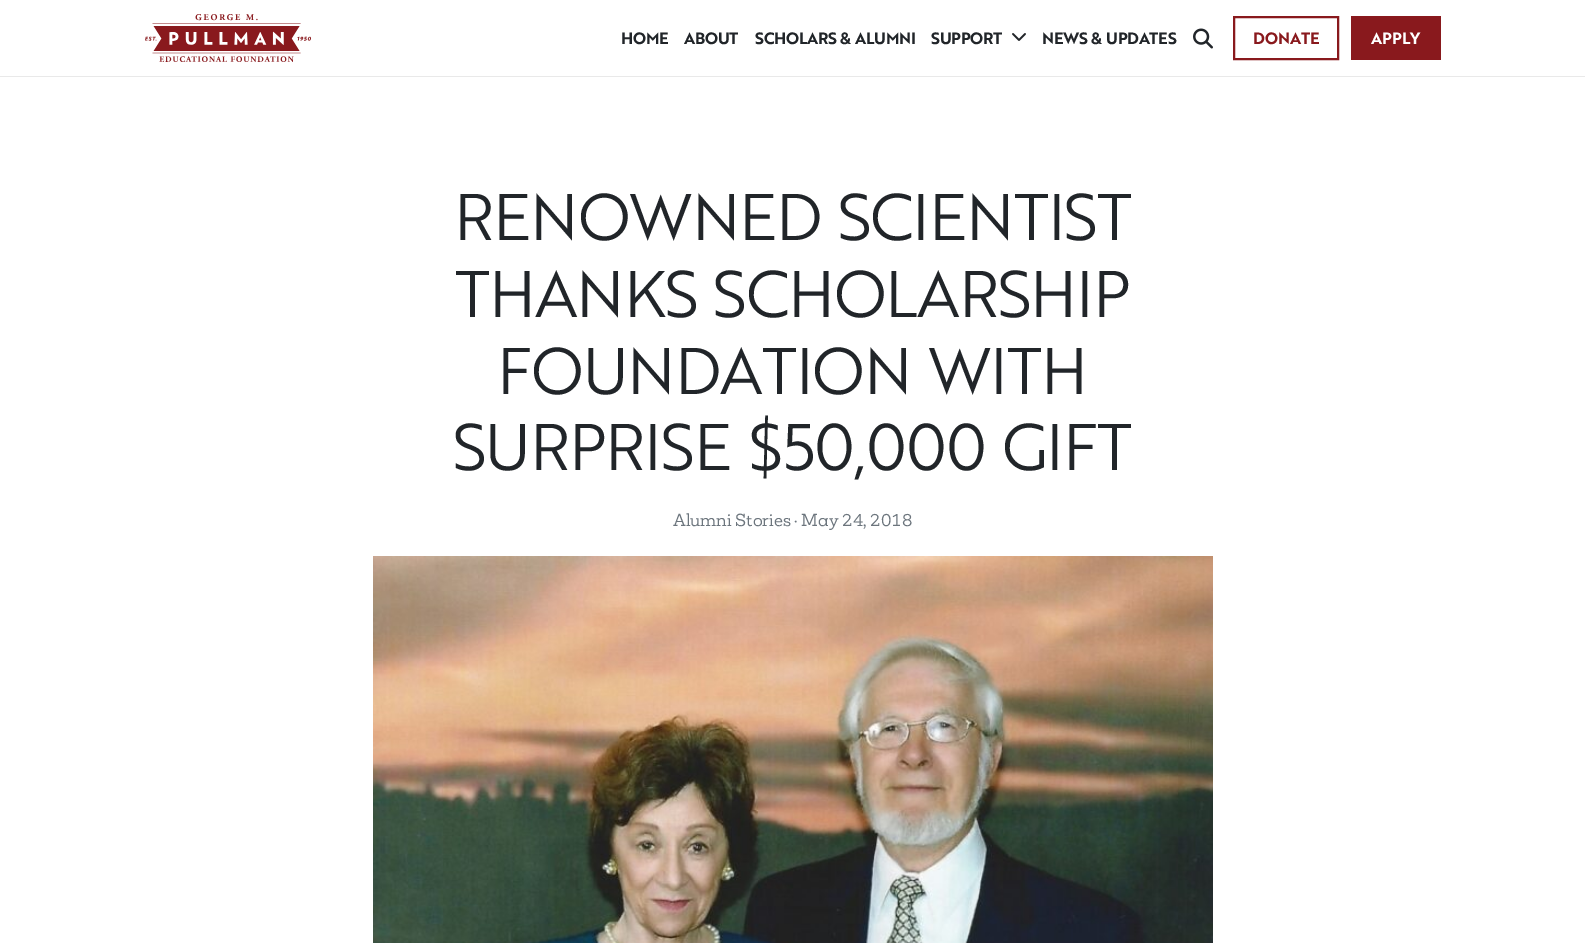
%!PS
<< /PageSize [1585 943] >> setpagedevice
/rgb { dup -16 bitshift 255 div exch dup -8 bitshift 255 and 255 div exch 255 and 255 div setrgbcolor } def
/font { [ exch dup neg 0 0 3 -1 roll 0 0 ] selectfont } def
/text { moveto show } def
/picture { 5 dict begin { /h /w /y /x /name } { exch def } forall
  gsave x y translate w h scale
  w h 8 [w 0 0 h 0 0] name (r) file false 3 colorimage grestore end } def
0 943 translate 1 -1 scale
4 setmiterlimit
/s1 { /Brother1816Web-Bold 16 font 16#89191D rgb } def
/s2 { /Brother1816Web-Bold 16 font 16#FFFFFF rgb } def
/s3 { /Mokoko-Regular 16 font 16#6C757D rgb } def
16#FFFFFF rgb
0 0 1585 943 rectfill
16#E9E9E9 rgb
0 76 1585 1 rectfill
(pic1.raw) 145 14 166 48 picture
/Brother1816Web-Bold 16 font
16#212529 rgb
621 44 moveto -0.25 0 (HOME) ashow
684 44 moveto -0.25 0 (ABOUT) ashow
755 44 moveto -0.25 0 (SCHOLARS & ALUMNI) ashow
931 44 moveto -0.25 0 (SUPPORT) ashow
(pic2.raw) 1012 33 14 8 picture
1042 44 moveto -0.25 0 (NEWS & UPDATES) ashow
(pic3.raw) 1193 28 20 21 picture
16#89191D rgb
2 setlinewidth
1234 17 104 42 rectstroke
(DONATE) 1253 44 text
1351 16 90 44 rectfill
s2
(APPLY) 1371 44 text
/Brother1816Web-Regular 64 font
16#212529 rgb
454 240 moveto -1 0 (RENOWNED SCIENTIST) ashow
455 317 moveto -1 0 (THANKS SCHOLARSHIP) ashow
497 394 moveto -1 0 (FOUNDATION WITH) ashow
453 470 moveto -1 0 (SURPRISE $50,000 GIFT) ashow
s3
(Alumni Stories · May 24, 2018) 673 526 text
(pic4.raw) 373 556 840 387 picture
showpage
